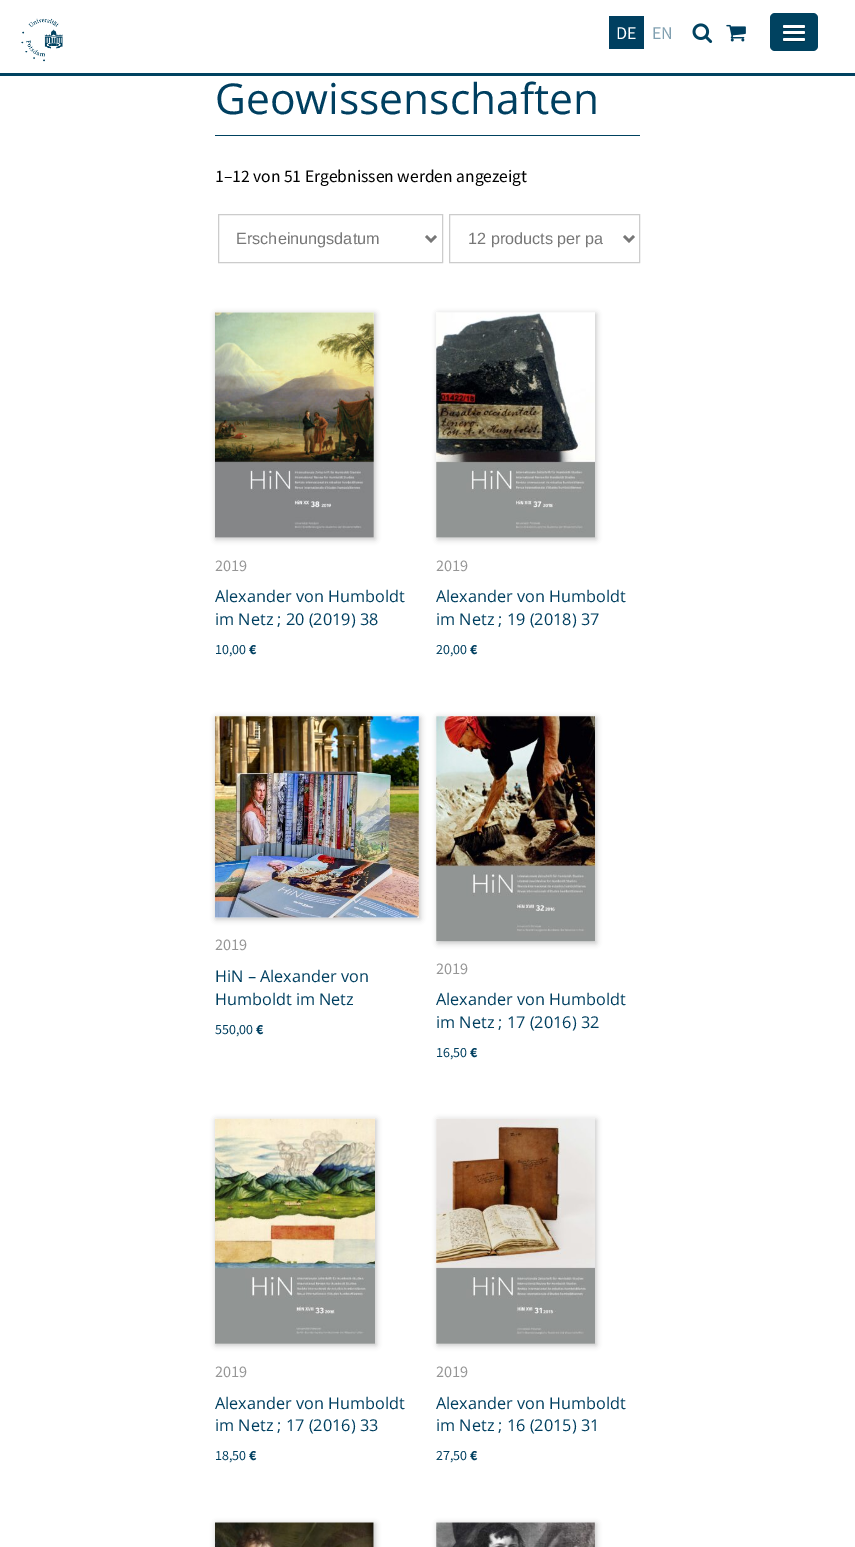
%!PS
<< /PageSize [855 1547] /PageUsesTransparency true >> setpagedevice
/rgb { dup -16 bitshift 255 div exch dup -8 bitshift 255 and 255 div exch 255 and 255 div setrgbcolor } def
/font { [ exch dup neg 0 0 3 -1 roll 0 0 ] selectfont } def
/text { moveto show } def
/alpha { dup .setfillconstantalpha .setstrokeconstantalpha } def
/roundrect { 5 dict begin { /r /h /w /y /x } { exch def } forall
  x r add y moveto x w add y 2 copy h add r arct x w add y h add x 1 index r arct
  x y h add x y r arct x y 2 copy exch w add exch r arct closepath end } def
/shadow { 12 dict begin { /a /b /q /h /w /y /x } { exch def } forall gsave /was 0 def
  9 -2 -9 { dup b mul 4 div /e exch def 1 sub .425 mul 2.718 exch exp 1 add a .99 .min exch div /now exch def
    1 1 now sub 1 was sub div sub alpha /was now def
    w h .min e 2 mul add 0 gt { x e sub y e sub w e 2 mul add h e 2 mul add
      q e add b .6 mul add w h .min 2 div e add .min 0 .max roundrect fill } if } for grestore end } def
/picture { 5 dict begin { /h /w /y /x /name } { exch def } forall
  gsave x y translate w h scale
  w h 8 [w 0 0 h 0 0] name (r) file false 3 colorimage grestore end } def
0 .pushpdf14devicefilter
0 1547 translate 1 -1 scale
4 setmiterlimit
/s1 { /SourceSansPro-Regular 18 font 16#FFFFFF rgb } def
/s2 { /SourceSansPro-Regular 18 font 16#809FB0 rgb } def
/s3 { /OpenSans-Regular 42.5 font 16#003F60 rgb } def
/s4 { /SourceSansPro-Regular 17.5 font 16#000000 rgb } def
/s5 { /LiberationSans-Regular 16.25 font 16#777777 rgb } def
/s6 { /SourceSansPro-Regular 16.25 font 16#969696 rgb } def
/s7 { /OpenSans-Regular 16.25 font 16#003F60 rgb } def
/s8 { /SourceSansPro-Regular 14 font 16#003F60 rgb } def
/s9 { /SourceSansPro-Bold 14 font 16#003F60 rgb } def
16#FFFFFF rgb
0 0 855 1547 rectfill
16#004260 rgb
0 73 855 3 rectfill
(pic1.raw) 21 18 42 44 picture
16#003F60 rgb
609 16 35 33 rectfill
s1
(DE) 616 39 text
s2
(EN) 652 39 text
(pic2.raw) 692 23 21 20 picture
(pic3.raw) 726 24 20 18 picture
16#004260 rgb
770 13 48 38 5 roundrect fill
16#003248 rgb
783 27.5 moveto 782.5 29.5 786.5 29 787.5 29 curveto 800.5 29 lineto 801 29 806 29.5 805 27 curveto 804 27.5 lineto 802 27.5 783.5 27.5 783 27.5 curveto closepath fill
16#FFFFFF rgb
783 25 22 3 1.5 roundrect fill
16#003248 rgb
783.5 33.5 moveto 781.5 36.5 787 36 787.5 36 curveto 794 36 lineto 796 36 804 36.5 804.5 35.5 curveto 805 34.5 805 34 804.5 33.5 curveto 804 34 784.5 34 783.5 33.5 curveto closepath fill
16#FFFFFF rgb
783 31 22 3 1.5 roundrect fill
16#003248 rgb
783 40 moveto 782 42.5 787 42 787.5 42 curveto 800.5 42 lineto 800.5 42 807 42.5 804.5 39.5 curveto 804 40 lineto closepath fill
16#FFFFFF rgb
783 38 22 3 1.5 roundrect fill
16#004260 rgb
215 135 425 1 rectfill
s3
(Geowissenschaften) 215 114 text
s4
(1–12 von 51 Ergebnissen werden angezeigt) 215 182 text
16#CCCCCC rgb
218.5 214.5 224 48 rectstroke
16#777777 rgb
2.5 setlinewidth
426 236 moveto 431 241 lineto 436 236 lineto stroke
s5
(Erscheinungsdatum) 236 244 text
16#CCCCCC rgb
1 setlinewidth
449.5 214.5 190 48 rectstroke
16#777777 rgb
2.5 setlinewidth
624 236 moveto 629 241 lineto 634 236 lineto stroke
(12 products per pa) 468 244 text
16#000000 rgb
216 314 159 225 0 3 0.25 shadow
(pic4.raw) 215 312 159 226 picture
s6
(2019) 215 571 text
s7
(Alexander von Humboldt) 215 602 text
(im Netz ; 20 \(2019\) 38) 215 625 text
s8
(10,00) 215 654 text
s9
(€) 249 654 text
16#000000 rgb
438 314 158 225 0 3 0.25 shadow
(pic5.raw) 436 312 159 226 picture
s6
(2019) 436 571 text
s7
(Alexander von Humboldt) 436 602 text
(im Netz ; 19 \(2018\) 37) 436 625 text
s8
(20,00) 436 654 text
s9
(€) 470 654 text
16#000000 rgb
216 718 204 201 0 3 0.25 shadow
(pic6.raw) 215 716 204 202 picture
s6
(2019) 215 950 text
s7
(HiN – Alexander von) 215 982 text
(Humboldt im Netz) 215 1005 text
s8
(550,00) 215 1034 text
s9
(€) 256 1034 text
16#000000 rgb
438 718 158 225 0 3 0.25 shadow
(pic7.raw) 436 716 159 226 picture
s6
(2019) 436 974 text
s7
(Alexander von Humboldt) 436 1005 text
(im Netz ; 17 \(2016\) 32) 436 1028 text
s8
(16,50) 436 1057 text
s9
(€) 470 1057 text
16#000000 rgb
216 1120 160 225 0 3 0.25 shadow
(pic8.raw) 215 1118 160 226 picture
s6
(2019) 215 1377 text
s7
(Alexander von Humboldt) 215 1409 text
(im Netz ; 17 \(2016\) 33) 215 1431 text
s8
(18,50) 215 1460 text
s9
(€) 249 1460 text
16#000000 rgb
438 1120 158 225 0 3 0.25 shadow
(pic9.raw) 436 1118 159 226 picture
s6
(2019) 436 1377 text
s7
(Alexander von Humboldt) 436 1409 text
(im Netz ; 16 \(2015\) 31) 436 1431 text
s8
(27,50) 436 1460 text
s9
(€) 470 1460 text
16#000000 rgb
216 1524 159 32 0 3 0.25 shadow
(pic10.raw) 215 1522 159 25 picture
438 1524 158 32 0 3 0.25 shadow
(pic11.raw) 436 1522 159 25 picture
.poppdf14devicefilter showpage
